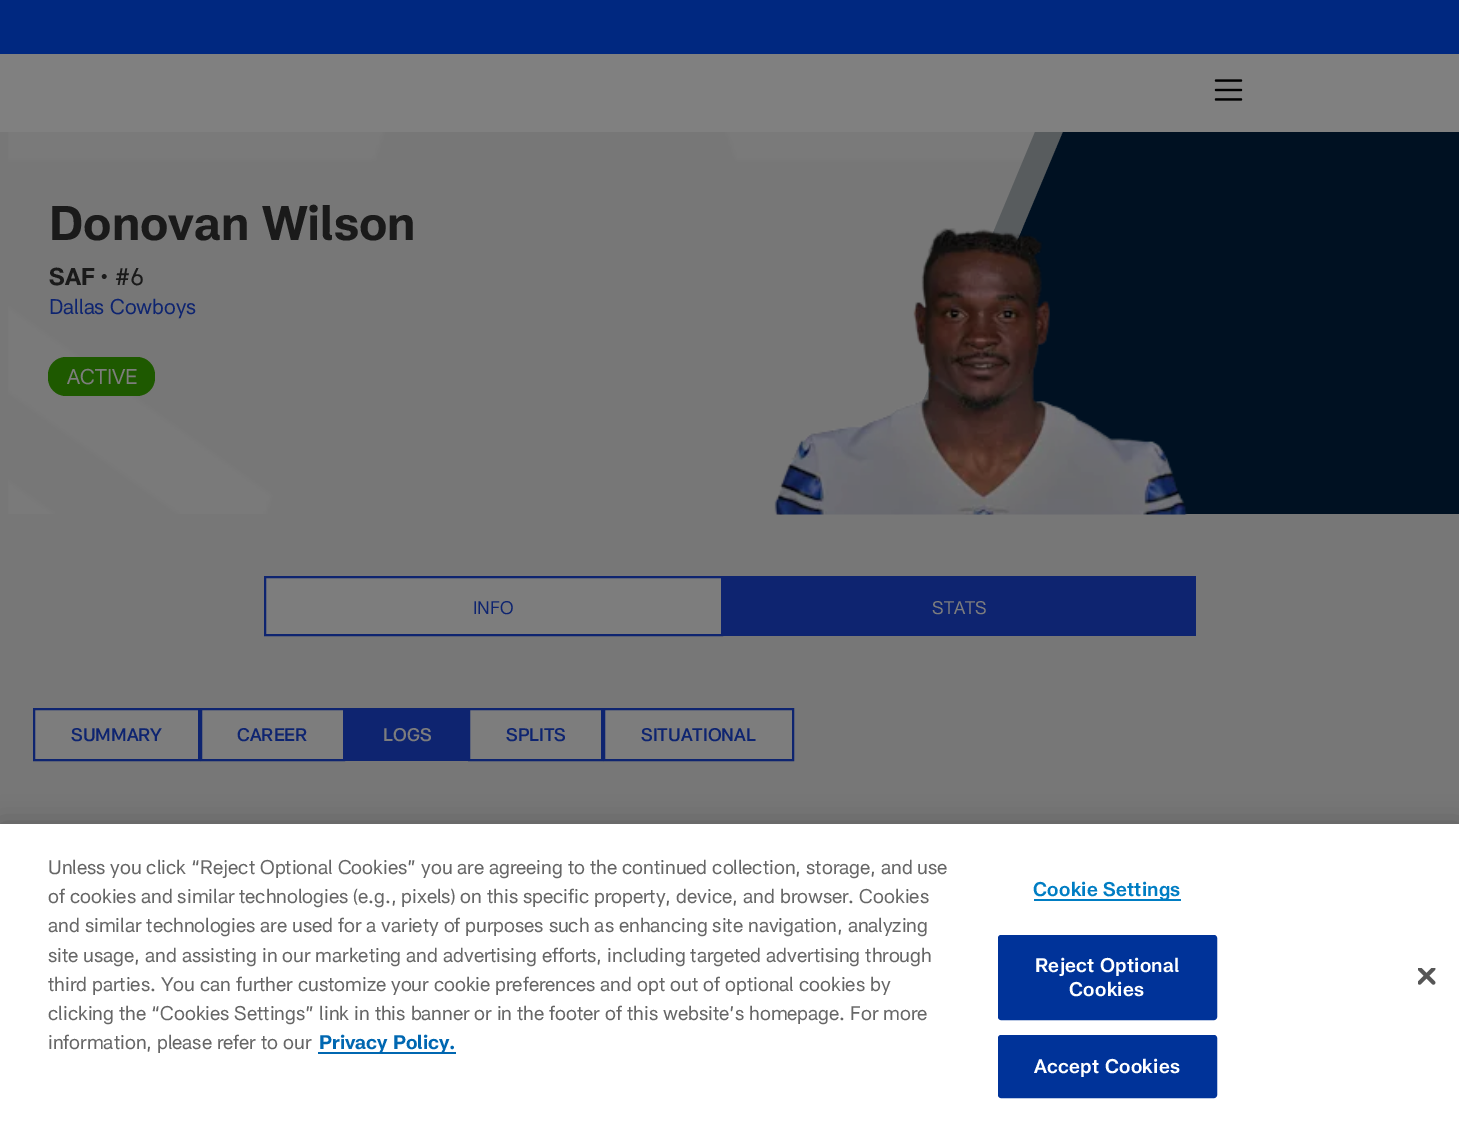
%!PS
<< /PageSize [1459 1127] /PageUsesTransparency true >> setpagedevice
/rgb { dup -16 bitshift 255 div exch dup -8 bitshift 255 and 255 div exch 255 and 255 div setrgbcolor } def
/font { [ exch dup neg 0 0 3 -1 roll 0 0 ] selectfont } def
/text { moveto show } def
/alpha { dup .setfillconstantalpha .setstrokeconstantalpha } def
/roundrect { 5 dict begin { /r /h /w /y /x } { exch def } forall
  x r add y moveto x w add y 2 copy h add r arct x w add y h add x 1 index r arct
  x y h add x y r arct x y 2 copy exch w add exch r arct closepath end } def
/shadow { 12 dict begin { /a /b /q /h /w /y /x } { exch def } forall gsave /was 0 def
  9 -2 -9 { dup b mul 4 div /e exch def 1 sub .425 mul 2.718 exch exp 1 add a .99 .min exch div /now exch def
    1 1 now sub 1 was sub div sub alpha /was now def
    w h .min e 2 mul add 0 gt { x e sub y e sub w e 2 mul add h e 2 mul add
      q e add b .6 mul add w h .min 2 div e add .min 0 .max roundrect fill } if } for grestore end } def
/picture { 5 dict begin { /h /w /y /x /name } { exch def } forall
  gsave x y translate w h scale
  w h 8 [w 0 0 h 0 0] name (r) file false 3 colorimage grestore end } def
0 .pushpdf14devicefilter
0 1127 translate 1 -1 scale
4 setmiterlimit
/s1 { /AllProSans-Bold 48 font 16#1A1A1A rgb } def
/s2 { /AllProSans-Bold 24 font 16#1A1A1A rgb } def
/s3 { /AllProSans-Regular 24 font 16#1A1A1A rgb } def
/s4 { /AllProSans-Regular 21 font 16#0E2470 rgb } def
/s5 { /AllProSans-Regular 21 font 16#7D7D7D rgb } def
/s6 { /AllProSans-Regular 18 font 16#0E2470 rgb } def
/s7 { /AllProSans-Regular 18 font 16#7D7D7D rgb } def
/s8 { /AllProSans-Medium 18 font 16#0E2470 rgb } def
/s9 { /AllProSans-Medium 18 font 16#7D7D7D rgb } def
/s10 { /AllProSans-Regular 19.5 font 16#666666 rgb } def
/s11 { /AllProSans-Bold 19.5 font 16#0067B1 rgb } def
16#777777 rgb
0 0 1459 1127 rectfill
16#808080 rgb
0 54 1459 78 rectfill
16#002880 rgb
0 0 1459 54 rectfill
(pic1.raw) 1214 79 29 22 picture
(pic2.raw) 8 132 1055 382 picture
16#585C5E rgb
1063 132 moveto 903 514 lineto 876 514 lineto 1035 132 lineto closepath fill
16#001122 rgb
903 514 moveto 1063 132 lineto 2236 132 lineto 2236 514 lineto closepath fill
(pic3.raw) 774 228 414 287 picture
s1
(Donovan Wilson) 49 240 text
s2
(SAF) 49 285 text
s3
(• #6) 100 285 text
s4
(Dallas Cowboys) 49 314 text
16#1E5900 rgb
48 357 107 39 18 roundrect fill
s5
(ACTIVE) 67 384 text
265 577 moveto 722 577 lineto 722 635 lineto 265 635 lineto closepath gsave fill grestore
16#0E2470 rgb
2 setlinewidth
stroke
s6
(INFO) 473 614 text
723 576 473 60 rectfill
s7
(STATS) 932 614 text
34 709 moveto 199 709 lineto 199 760 lineto 34 760 lineto closepath gsave fill grestore
16#0E2470 rgb
stroke
s8
(SUMMARY) 71 741 text
16#7D7D7D rgb
201 709 moveto 344 709 lineto 344 760 lineto 201 760 lineto closepath gsave fill grestore
16#0E2470 rgb
stroke
(CAREER) 237 741 text
345 708 123 53 rectfill
s9
(LOGS) 383 741 text
469 709 moveto 602 709 lineto 602 760 lineto 469 760 lineto closepath gsave fill grestore
16#0E2470 rgb
stroke
(SPLITS) 506 741 text
16#7D7D7D rgb
604 709 moveto 793 709 lineto 793 760 lineto 604 760 lineto closepath gsave fill grestore
16#0E2470 rgb
stroke
(SITUATIONAL) 641 741 text
16#000000 rgb
0 824 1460 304 0 13.5 0.2 shadow
16#FFFFFF rgb
0 824 1459 303 rectfill
s10
(Unless you click “Reject Optional Cookies” you are agreeing to the continued collection, storage, and use) 48 874 text
(of cookies and similar technologies \(e.g., pixels\) on this specific property, device, and browser. Cookies) 48 903 text
(and similar technologies are used for a variety of purposes such as enhancing site navigation, analyzing) 48 932 text
(site usage, and assisting in our marketing and advertising efforts, including targeted advertising through) 48 962 text
(third parties. You can further customize your cookie preferences and opt out of optional cookies by) 48 991 text
(clicking the “Cookies Settings” link in this banner or in the footer of this website’s homepage. For more) 48 1020 text
(information, please refer to our) 48 1049 text
16#0067B1 rgb
318 1052 138 2 rectfill
s11
(Privacy Policy.) 319 1049 text
16#007DC3 rgb
1034 899 147 2 rectfill
/AllProSans-SemiBold 19.5 font
1033 896 moveto 0.25 0 (Cookie Settings) ashow
16#003399 rgb
999 936 217 83 2 roundrect gsave fill grestore
stroke
16#FFFFFF rgb
1035 972 moveto 0.25 0 (Reject Optional) ashow
1069 996 moveto 0.25 0 (Cookies) ashow
16#003399 rgb
999 1036 217 61 2 roundrect gsave fill grestore
stroke
16#FFFFFF rgb
1034 1073 moveto 0.25 0 (Accept Cookies) ashow
(pic4.raw) 1418 968 18 17 picture
.poppdf14devicefilter showpage
